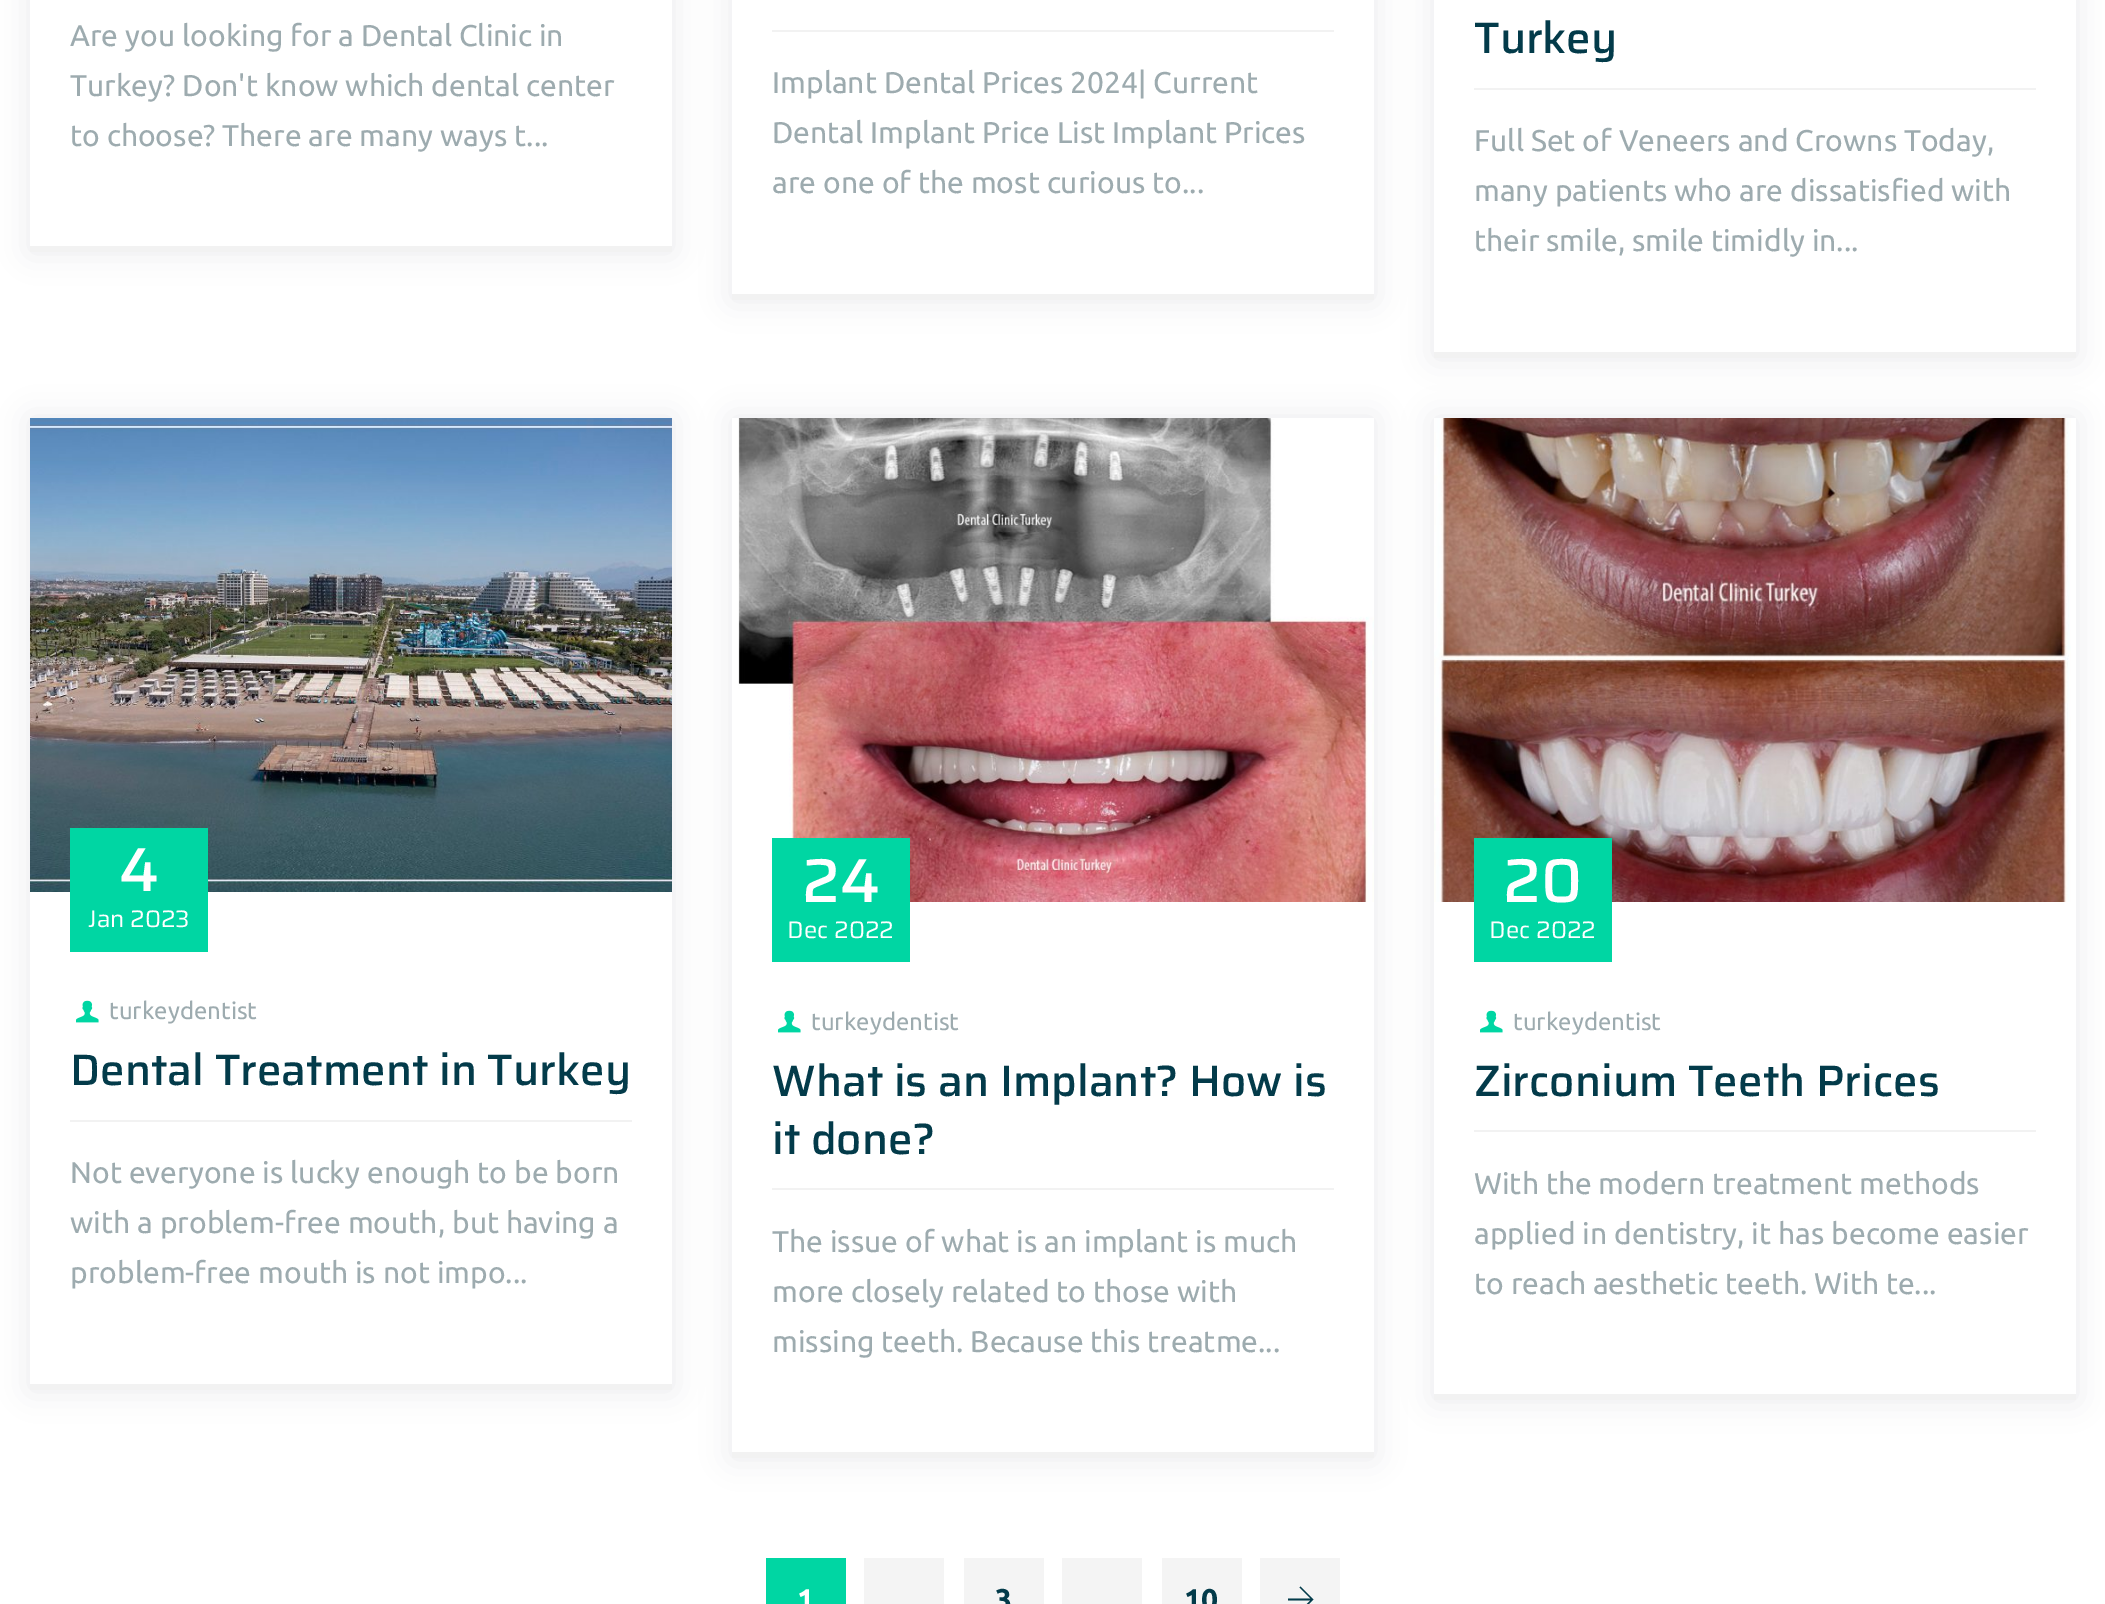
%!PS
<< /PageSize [2105 1604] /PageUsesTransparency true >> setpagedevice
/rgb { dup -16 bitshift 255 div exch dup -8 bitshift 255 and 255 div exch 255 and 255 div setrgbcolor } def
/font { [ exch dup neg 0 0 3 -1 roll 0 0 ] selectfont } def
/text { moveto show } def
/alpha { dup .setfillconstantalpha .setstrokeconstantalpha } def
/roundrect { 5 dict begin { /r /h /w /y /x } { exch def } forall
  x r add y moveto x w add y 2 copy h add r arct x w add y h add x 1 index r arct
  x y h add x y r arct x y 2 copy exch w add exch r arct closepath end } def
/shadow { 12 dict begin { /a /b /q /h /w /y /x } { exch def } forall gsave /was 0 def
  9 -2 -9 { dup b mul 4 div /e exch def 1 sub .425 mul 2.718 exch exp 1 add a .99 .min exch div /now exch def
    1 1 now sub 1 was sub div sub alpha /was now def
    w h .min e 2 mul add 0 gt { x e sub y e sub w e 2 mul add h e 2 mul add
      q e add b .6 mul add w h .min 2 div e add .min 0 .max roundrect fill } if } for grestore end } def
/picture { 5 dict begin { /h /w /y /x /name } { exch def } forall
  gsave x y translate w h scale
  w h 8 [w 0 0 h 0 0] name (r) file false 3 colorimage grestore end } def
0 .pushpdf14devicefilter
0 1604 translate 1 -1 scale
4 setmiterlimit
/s1 { /Ubuntu-Regular 30 font 16#9DABAF rgb } def
/s2 { /Saira-Medium 44 font 16#033B4A rgb } def
/s3 { /Saira-Medium 62 font 16#FFFFFF rgb } def
/s4 { /Saira-Regular 24 font 16#FFFFFF rgb } def
/s5 { /Ubuntu-Regular 24 font 16#9DABAF rgb } def
/s6 { /Ubuntu-Bold 30 font 16#FFFFFF rgb } def
/s7 { /Ubuntu-Bold 30 font 16#033B4A rgb } def
16#FFFFFF rgb
0 0 2105 1604 rectfill
gsave
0 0 moveto 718 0 lineto 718 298 lineto 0 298 lineto closepath 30 -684 moveto 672 -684 lineto 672 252 lineto 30 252 lineto closepath eoclip newpath
16#293D58 rgb
30 -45 642 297 0 15 0.1 shadow
grestore
16#F2F2F2 rgb
30 246 642 6 rectfill
s1
(Are you looking for a Dental Clinic in) 70 46 text
(Turkey? Don't know which dental center) 70 96 text
(to choose? There are many ways t...) 70 146 text
gsave
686 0 moveto 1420 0 lineto 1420 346 lineto 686 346 lineto closepath 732 -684 moveto 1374 -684 lineto 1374 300 lineto 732 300 lineto closepath eoclip newpath
16#293D58 rgb
732 -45 642 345 0 15 0.1 shadow
grestore
16#F2F2F2 rgb
732 294 642 6 rectfill
772 30 562 2 rectfill
s1
(Implant Dental Prices 2024| Current) 772 93 text
(Dental Implant Price List Implant Prices) 772 143 text
(are one of the most curious to...) 772 193 text
gsave
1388 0 moveto 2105 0 lineto 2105 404 lineto 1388 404 lineto closepath 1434 -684 moveto 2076 -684 lineto 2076 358 lineto 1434 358 lineto closepath eoclip newpath
16#293D58 rgb
1434 -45 642 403 0 15 0.1 shadow
grestore
16#F2F2F2 rgb
1434 352 642 6 rectfill
s2
(Turkey) 1474 53 text
16#F2F2F2 rgb
1474 88 562 2 rectfill
s1
(Full Set of Veneers and Crowns Today,) 1474 151 text
(many patients who are dissatisfied with) 1474 201 text
(their smile, smile timidly in...) 1474 251 text
gsave
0 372 moveto 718 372 lineto 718 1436 lineto 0 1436 lineto closepath 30 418 moveto 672 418 lineto 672 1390 lineto 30 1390 lineto closepath eoclip newpath
16#293D58 rgb
30 418 642 972 0 15 0.1 shadow
grestore
16#F2F2F2 rgb
30 1384 642 6 rectfill
(pic1.raw) 30 418 642 474 picture
16#00D6A3 rgb
70 828 138 124 rectfill
s3
(4) 119 891 text
s4
(Jan) 88 927 text
(2023) 130 927 text
(pic2.raw) 76 1000 23 23 picture
s5
(turkeydentist) 109 1019 text
s2
(Dental Treatment in Turkey) 70 1085 text
16#F2F2F2 rgb
70 1120 562 2 rectfill
s1
(Not everyone is lucky enough to be born) 70 1183 text
(with a problem-free mouth, but having a) 70 1233 text
(problem-free mouth is not impo...) 70 1283 text
gsave
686 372 moveto 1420 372 lineto 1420 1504 lineto 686 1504 lineto closepath 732 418 moveto 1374 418 lineto 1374 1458 lineto 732 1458 lineto closepath eoclip newpath
16#293D58 rgb
732 418 642 1040 0 15 0.1 shadow
grestore
16#F2F2F2 rgb
732 1452 642 6 rectfill
(pic3.raw) 738 418 636 484 picture
16#00D6A3 rgb
772 838 138 124 rectfill
s3
(24) 802 902 text
s4
(Dec) 787 938 text
(2022) 834 938 text
(pic2.raw) 778 1010 23 23 picture
s5
(turkeydentist) 811 1030 text
s2
(What is an Implant? How is) 772 1096 text
(it done?) 772 1154 text
16#F2F2F2 rgb
772 1188 562 2 rectfill
s1
(The issue of what is an implant is much) 772 1252 text
(more closely related to those with) 772 1302 text
(missing teeth. Because this treatme...) 772 1352 text
gsave
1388 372 moveto 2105 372 lineto 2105 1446 lineto 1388 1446 lineto closepath 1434 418 moveto 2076 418 lineto 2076 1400 lineto 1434 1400 lineto closepath eoclip newpath
16#293D58 rgb
1434 418 642 982 0 15 0.1 shadow
grestore
16#F2F2F2 rgb
1434 1394 642 6 rectfill
(pic4.raw) 1434 418 637 484 picture
16#00D6A3 rgb
1474 838 138 124 rectfill
s3
(20) 1503 902 text
s4
(Dec) 1489 938 text
(2022) 1536 938 text
(pic2.raw) 1480 1010 23 23 picture
s5
(turkeydentist) 1513 1030 text
s2
(Zirconium Teeth Prices) 1474 1096 text
16#F2F2F2 rgb
1474 1130 562 2 rectfill
s1
(With the modern treatment methods) 1474 1194 text
(applied in dentistry, it has become easier) 1474 1244 text
(to reach aesthetic teeth. With te...) 1474 1294 text
16#00D6A3 rgb
766 1558 80 46 rectfill
s6
(1) 797 1610 text
16#F4F4F4 rgb
864 1558 80 46 rectfill
964 1558 80 46 rectfill
s7
(3) 995 1610 text
16#F4F4F4 rgb
1062 1558 80 46 rectfill
1162 1558 80 46 rectfill
s7
(10) 1184 1610 text
16#F4F4F4 rgb
1260 1558 80 46 rectfill
16#033B4A rgb
1313.5 1599.5 moveto 1300.5 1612.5 lineto 1299.5 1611 lineto 1310.5 1600.5 lineto 1288 1600.5 lineto 1288 1598.5 lineto 1310.5 1598.5 lineto 1299.5 1587.5 lineto 1300.5 1586.5 lineto closepath fill
.poppdf14devicefilter showpage
